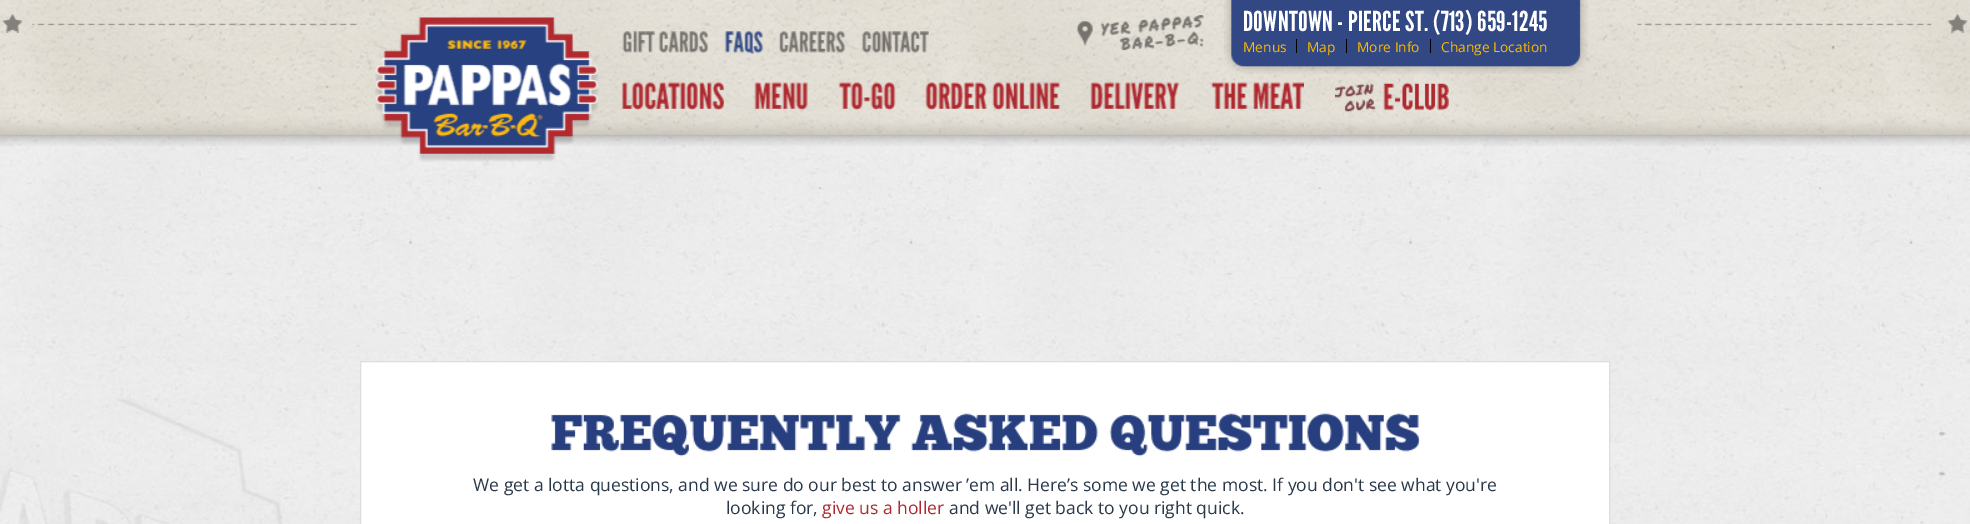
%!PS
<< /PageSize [1970 524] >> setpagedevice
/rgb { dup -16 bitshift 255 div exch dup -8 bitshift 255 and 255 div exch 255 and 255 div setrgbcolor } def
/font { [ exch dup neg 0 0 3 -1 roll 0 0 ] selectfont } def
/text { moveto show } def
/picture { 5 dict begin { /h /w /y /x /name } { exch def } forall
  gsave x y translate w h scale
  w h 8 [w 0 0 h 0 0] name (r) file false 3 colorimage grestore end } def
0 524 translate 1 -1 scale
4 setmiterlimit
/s1 { /OpenSans-Regular 13.75 font 16#FFBA00 rgb } def
/s2 { /OpenSans-Regular 17.5 font 16#293949 rgb } def
/s3 { /OpenSans-Regular 17.5 font 16#AD292F rgb } def
16#FFFFFF rgb
0 0 1970 524 rectfill
(pic1.raw) 0 133 1970 391 picture
(pic2.raw) 0 0 1970 146 picture
(pic17.raw) 2 14 1966 19 picture
(pic3.raw) 375 17 224 145 picture
(pic4.raw) 622 31 86 22 picture
(pic5.raw) 724 31 39 23 picture
(pic6.raw) 779 31 67 22 picture
(pic7.raw) 861 31 68 22 picture
(pic8.raw) 1224 0 364 74 picture
(pic9.raw) 1076 15 128 36 picture
/LeagueGothic-Regular 27.5 font
1243 31 moveto 0.25 0 (DOWNTOWN - PIERCE ST. \(713\) 659-1245) ashow
16#000000 rgb
1296 39 1 14 rectfill
s1
(Menus) 1243 52 text
16#000000 rgb
1346 39 1 14 rectfill
s1
(Map) 1307 52 text
16#000000 rgb
1430 39 1 14 rectfill
s1
(More Info) 1357 52 text
(Change Location) 1441 52 text
(pic10.raw) 621 82 103 28 picture
(pic11.raw) 754 82 54 28 picture
(pic12.raw) 838 82 58 28 picture
(pic13.raw) 925 82 136 28 picture
(pic14.raw) 1090 82 90 27 picture
(pic15.raw) 1210 82 94 27 picture
(pic16.raw) 1335 82 114 30 picture
16#FFFFFF rgb
360.5 361.5 moveto 1609.5 361.5 lineto 1609.5 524.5 lineto 360.5 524.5 lineto closepath gsave fill grestore
16#DDDDDD rgb
stroke
(pic18.raw) 551 413 869 44 picture
s2
(We get a lotta questions, and we sure do our best to answer ’em all. Here’s some we get the most. If you don't see what you're) 473 491 text
(looking for,) 726 514 text
s3
(give us a holler) 822 514 text
s2
(and we'll get back to you right quick.) 949 514 text
showpage
